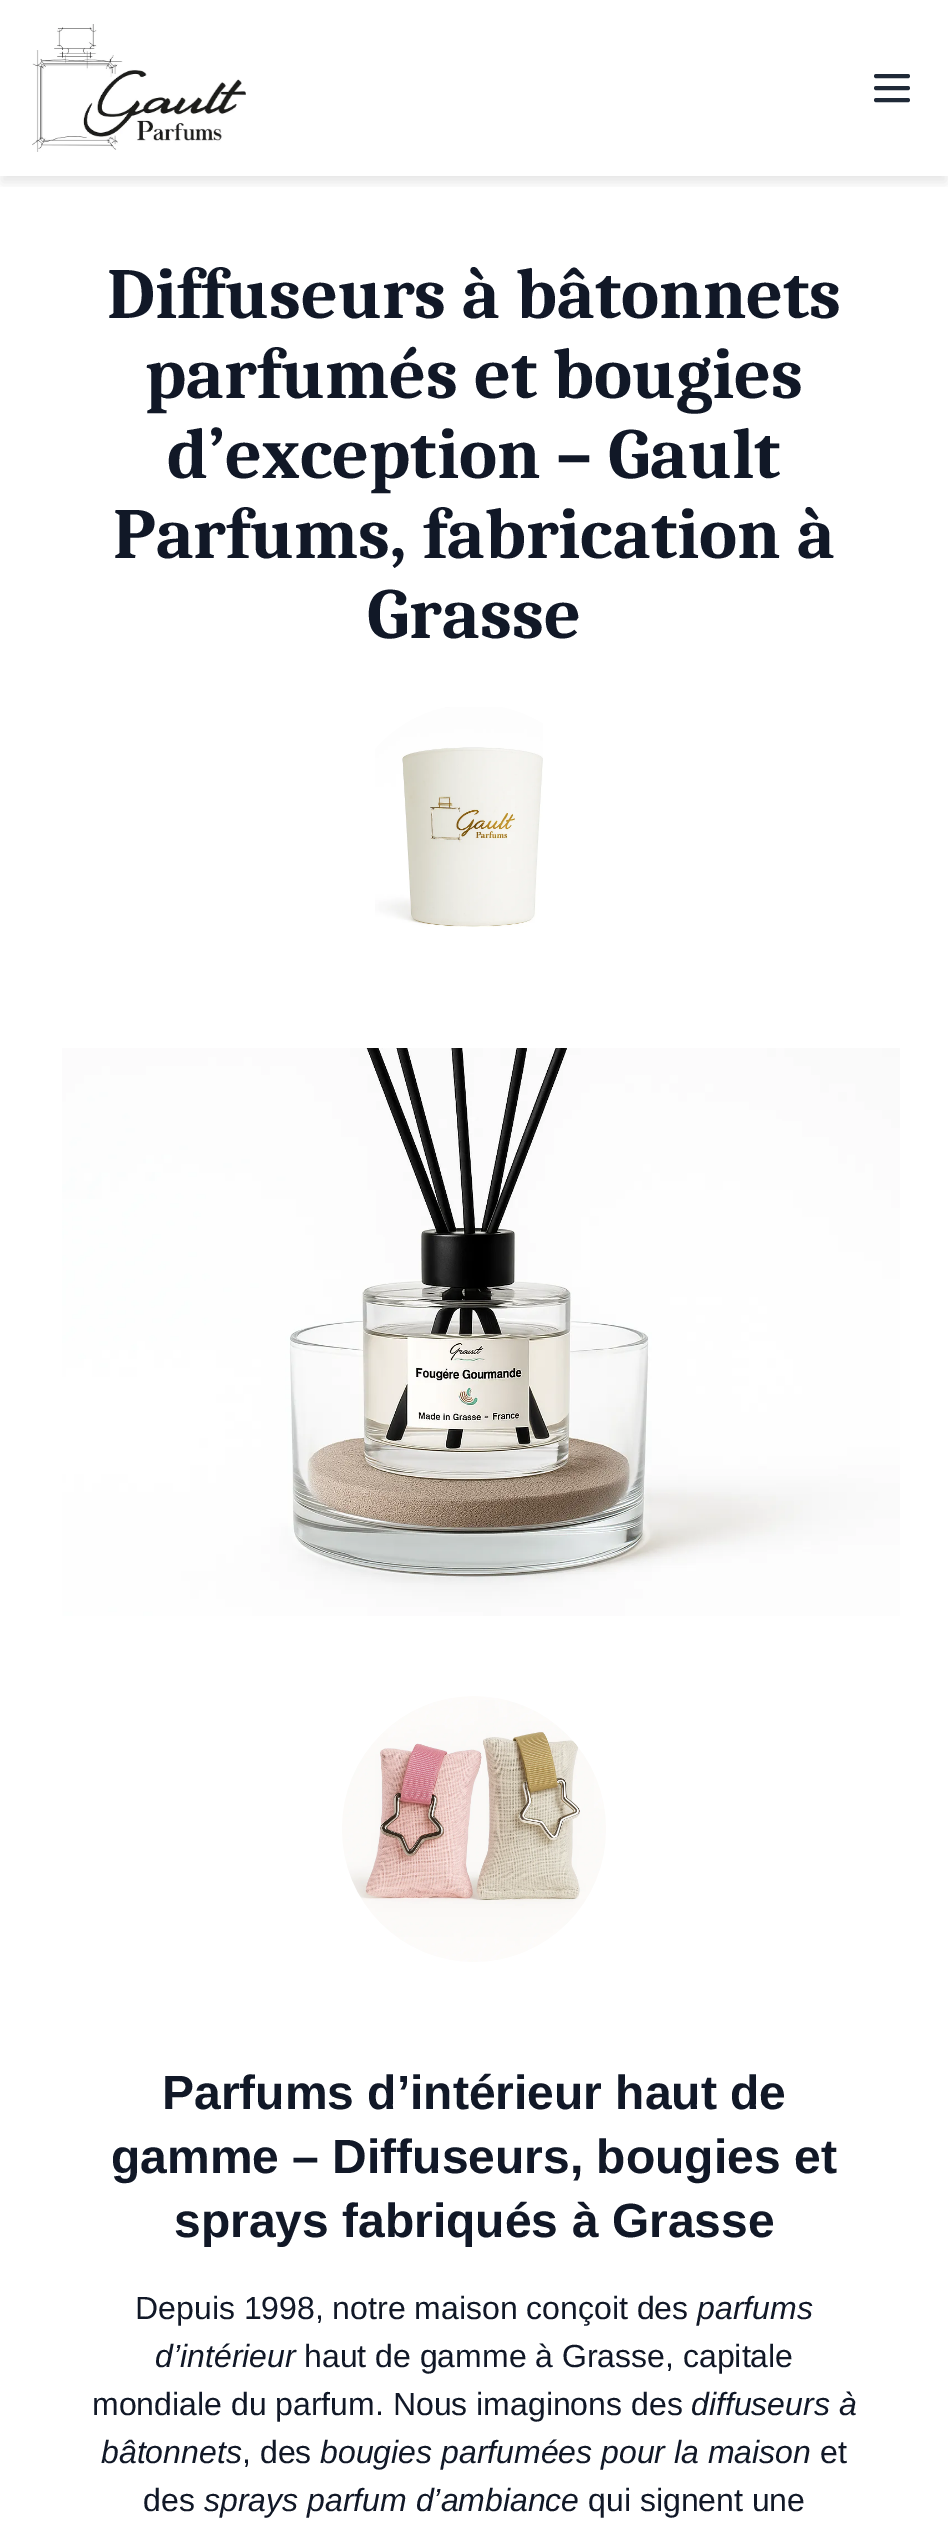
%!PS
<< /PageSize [948 2528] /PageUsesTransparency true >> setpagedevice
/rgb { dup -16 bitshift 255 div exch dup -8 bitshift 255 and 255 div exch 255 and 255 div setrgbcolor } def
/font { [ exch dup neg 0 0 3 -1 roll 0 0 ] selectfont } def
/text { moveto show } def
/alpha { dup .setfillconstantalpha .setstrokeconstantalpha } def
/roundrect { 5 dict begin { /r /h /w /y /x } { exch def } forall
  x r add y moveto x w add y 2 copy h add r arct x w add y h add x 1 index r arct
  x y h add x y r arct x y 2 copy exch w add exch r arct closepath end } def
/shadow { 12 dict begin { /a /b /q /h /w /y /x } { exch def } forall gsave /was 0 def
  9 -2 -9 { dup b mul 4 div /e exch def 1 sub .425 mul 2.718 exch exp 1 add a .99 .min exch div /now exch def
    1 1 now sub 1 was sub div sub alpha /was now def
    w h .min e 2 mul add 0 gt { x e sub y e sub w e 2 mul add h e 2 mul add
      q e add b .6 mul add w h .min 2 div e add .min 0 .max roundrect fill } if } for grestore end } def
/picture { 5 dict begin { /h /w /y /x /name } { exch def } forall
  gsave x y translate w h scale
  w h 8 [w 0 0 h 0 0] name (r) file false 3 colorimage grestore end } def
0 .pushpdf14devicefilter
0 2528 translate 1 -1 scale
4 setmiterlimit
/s1 { /Caladea-Bold 72 font 16#111827 rgb } def
/s2 { /LiberationSans-Bold 48 font 16#111827 rgb } def
/s3 { /LiberationSans-Regular 32 font 16#111827 rgb } def
/s4 { /LiberationSans-Italic 32 font 16#111827 rgb } def
16#FFFFFF rgb
0 0 948 2528 rectfill
gsave
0 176 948 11 rectclip
16#000000 rgb
2 10 944 172 0 6 0.1 shadow
grestore
(pic1.raw) 32 24 214 128 picture
16#1F2937 rgb
4 setlinewidth
1 setlinecap
1 setlinejoin
876 76 moveto 908 76 lineto 876 88 moveto 908 88 lineto 876 100 moveto 908 100 lineto stroke
s1
(Diffuseurs à bâtonnets) 107 318 text
(parfumés et bougies) 145 398 text
(d’exception – Gault) 167 478 text
(Parfums, fabrication à) 113 558 text
(Grasse) 367 638 text
(pic2.raw) 375 707 168 220 picture
(pic3.raw) 62 1048 838 568 picture
(pic4.raw) 342 1696 264 266 picture
s2
(Parfums d’intérieur haut de) 162 2109 text
(gamme – Diffuseurs, bougies et) 111 2173 text
(sprays fabriqués à Grasse) 174 2237 text
s3
(Depuis 1998, notre maison conçoit des) 135 2319 text
s4
(parfums) 697 2319 text
(d’intérieur) 155 2367 text
s3
(haut de gamme à Grasse, capitale) 304 2367 text
(mondiale du parfum. Nous imaginons des) 92 2415 text
s4
(diffuseurs à) 691 2415 text
(bâtonnets) 101 2463 text
s3
(, des) 242 2463 text
s4
(bougies parfumées pour la maison) 320 2463 text
s3
(et) 820 2463 text
(des) 143 2511 text
s4
(sprays parfum d’ambiance) 204 2511 text
s3
(qui signent une) 588 2511 text
.poppdf14devicefilter showpage
